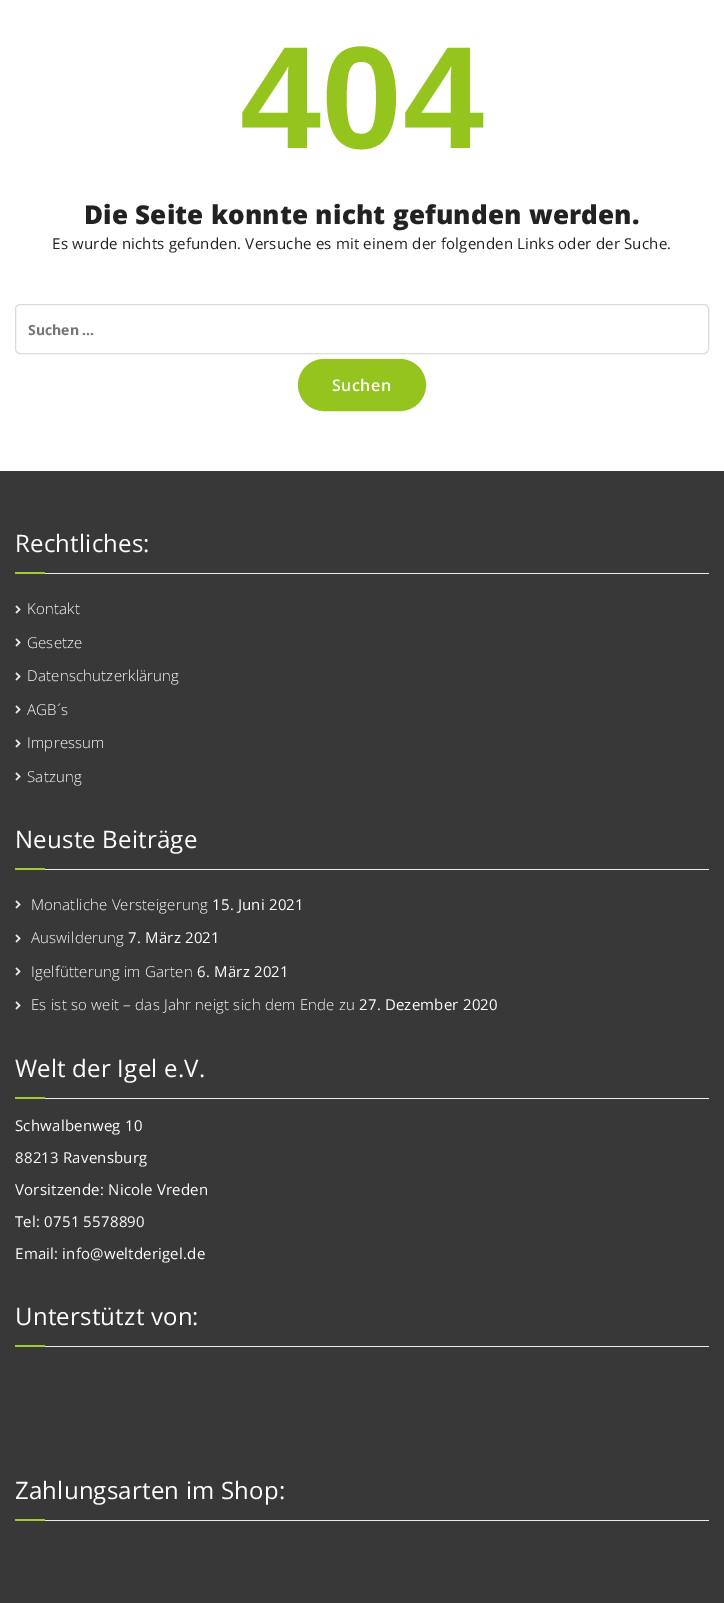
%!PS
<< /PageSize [724 1603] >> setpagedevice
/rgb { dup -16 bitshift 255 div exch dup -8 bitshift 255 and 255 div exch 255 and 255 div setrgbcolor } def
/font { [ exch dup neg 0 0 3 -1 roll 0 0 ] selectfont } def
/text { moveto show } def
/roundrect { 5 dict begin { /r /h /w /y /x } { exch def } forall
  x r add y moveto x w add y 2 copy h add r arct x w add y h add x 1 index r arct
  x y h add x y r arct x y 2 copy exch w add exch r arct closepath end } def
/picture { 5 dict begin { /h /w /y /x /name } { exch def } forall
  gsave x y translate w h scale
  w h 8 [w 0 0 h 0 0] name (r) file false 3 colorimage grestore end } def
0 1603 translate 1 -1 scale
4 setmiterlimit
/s1 { /OpenSans-Bold 14 font 16#757575 rgb } def
16#FFFFFF rgb
0 0 724 1603 rectfill
/LiberationSans-Bold 146 font
16#95C41F rgb
240 148 moveto 0.2 0 (404) ashow
/OpenSans-ExtraBold 26 font
16#222222 rgb
84 224 moveto 0.2 0 (Die Seite konnte nicht gefunden werden.) ashow
/OpenSans-Regular 15 font
52 249 moveto 0.2 0 (Es wurde nichts gefunden. Versuche es mit einem der folgenden Links oder der Suche.) ashow
16#DCDCDC rgb
15.5 304.5 693 49 4.5 roundrect stroke
s1
(Suchen …) 28 335 text
16#95C41F rgb
299 360 126 50 25 roundrect gsave fill grestore
2 setlinewidth
stroke
/OpenSans-SemiBold 16 font
16#FFFFFF rgb
332 391 moveto 0.5 0 (Suchen) ashow
16#383838 rgb
0 471 724 1132 rectfill
16#E9ECF2 rgb
45 573 664 1 rectfill
/OpenSans-Regular 24 font
16#FFFFFF rgb
15 552 moveto 0.2 0 (Rechtliches:) ashow
16#A0CA35 rgb
15 572 30 2 rectfill
(pic1.raw) 15 605 6 9 picture
/OpenSans-Light 15 font
16#FFFFFF rgb
27 614 moveto 0.2 0 (Kontakt) ashow
(pic1.raw) 15 638 6 9 picture
27 648 moveto 0.2 0 (Gesetze) ashow
(pic1.raw) 15 672 6 9 picture
27 681 moveto 0.2 0 (Datenschutzerklärung) ashow
(pic1.raw) 15 705 6 9 picture
27 715 moveto 0.2 0 (AGB´s) ashow
(pic1.raw) 15 739 6 9 picture
27 748 moveto 0.2 0 (Impressum) ashow
(pic1.raw) 15 772 6 9 picture
27 782 moveto 0.2 0 (Satzung) ashow
16#E9ECF2 rgb
45 869 664 1 rectfill
/OpenSans-Regular 24 font
16#FFFFFF rgb
15 848 moveto 0.2 0 (Neuste Beiträge) ashow
16#A0CA35 rgb
15 868 30 2 rectfill
(pic1.raw) 15 900 6 9 picture
/OpenSans-Light 15 font
16#FFFFFF rgb
31 910 moveto 0.2 0 (Monatliche Versteigerung) ashow
/OpenSans-Regular 15 font
212 910 moveto 0.2 0 (15. Juni 2021) ashow
(pic1.raw) 15 934 6 9 picture
/OpenSans-Light 15 font
31 943 moveto 0.2 0 (Auswilderung) ashow
/OpenSans-Regular 15 font
128 943 moveto 0.2 0 (7. März 2021) ashow
(pic1.raw) 15 967 6 9 picture
/OpenSans-Light 15 font
31 977 moveto 0.2 0 (Igelfütterung im Garten) ashow
/OpenSans-Regular 15 font
197 977 moveto 0.2 0 (6. März 2021) ashow
(pic1.raw) 15 1001 6 9 picture
/OpenSans-Light 15 font
31 1010 moveto 0.2 0 (Es ist so weit – das Jahr neigt sich dem Ende zu) ashow
/OpenSans-Regular 15 font
359 1010 moveto 0.2 0 (27. Dezember 2020) ashow
16#E9ECF2 rgb
45 1098 664 1 rectfill
/OpenSans-Regular 24 font
16#FFFFFF rgb
15 1077 moveto 0.2 0 (Welt der Igel e.V.) ashow
16#A0CA35 rgb
15 1097 30 2 rectfill
/OpenSans-Regular 15 font
16#FFFFFF rgb
15 1131 moveto 0.2 0 (Schwalbenweg 10) ashow
15 1163 moveto 0.2 0 (88213 Ravensburg) ashow
15 1195 moveto 0.2 0 (Vorsitzende: Nicole Vreden) ashow
15 1227 moveto 0.2 0 (Tel: 0751 5578890) ashow
15 1259 moveto 0.2 0 (Email: info@weltderigel.de) ashow
16#E9ECF2 rgb
45 1346 664 1 rectfill
/OpenSans-Regular 24 font
16#FFFFFF rgb
15 1325 moveto 0.2 0 (Unterstützt von:) ashow
16#A0CA35 rgb
15 1345 30 2 rectfill
16#E9ECF2 rgb
45 1520 664 1 rectfill
16#FFFFFF rgb
15 1499 moveto 0.2 0 (Zahlungsarten im Shop:) ashow
16#A0CA35 rgb
15 1519 30 2 rectfill
showpage
